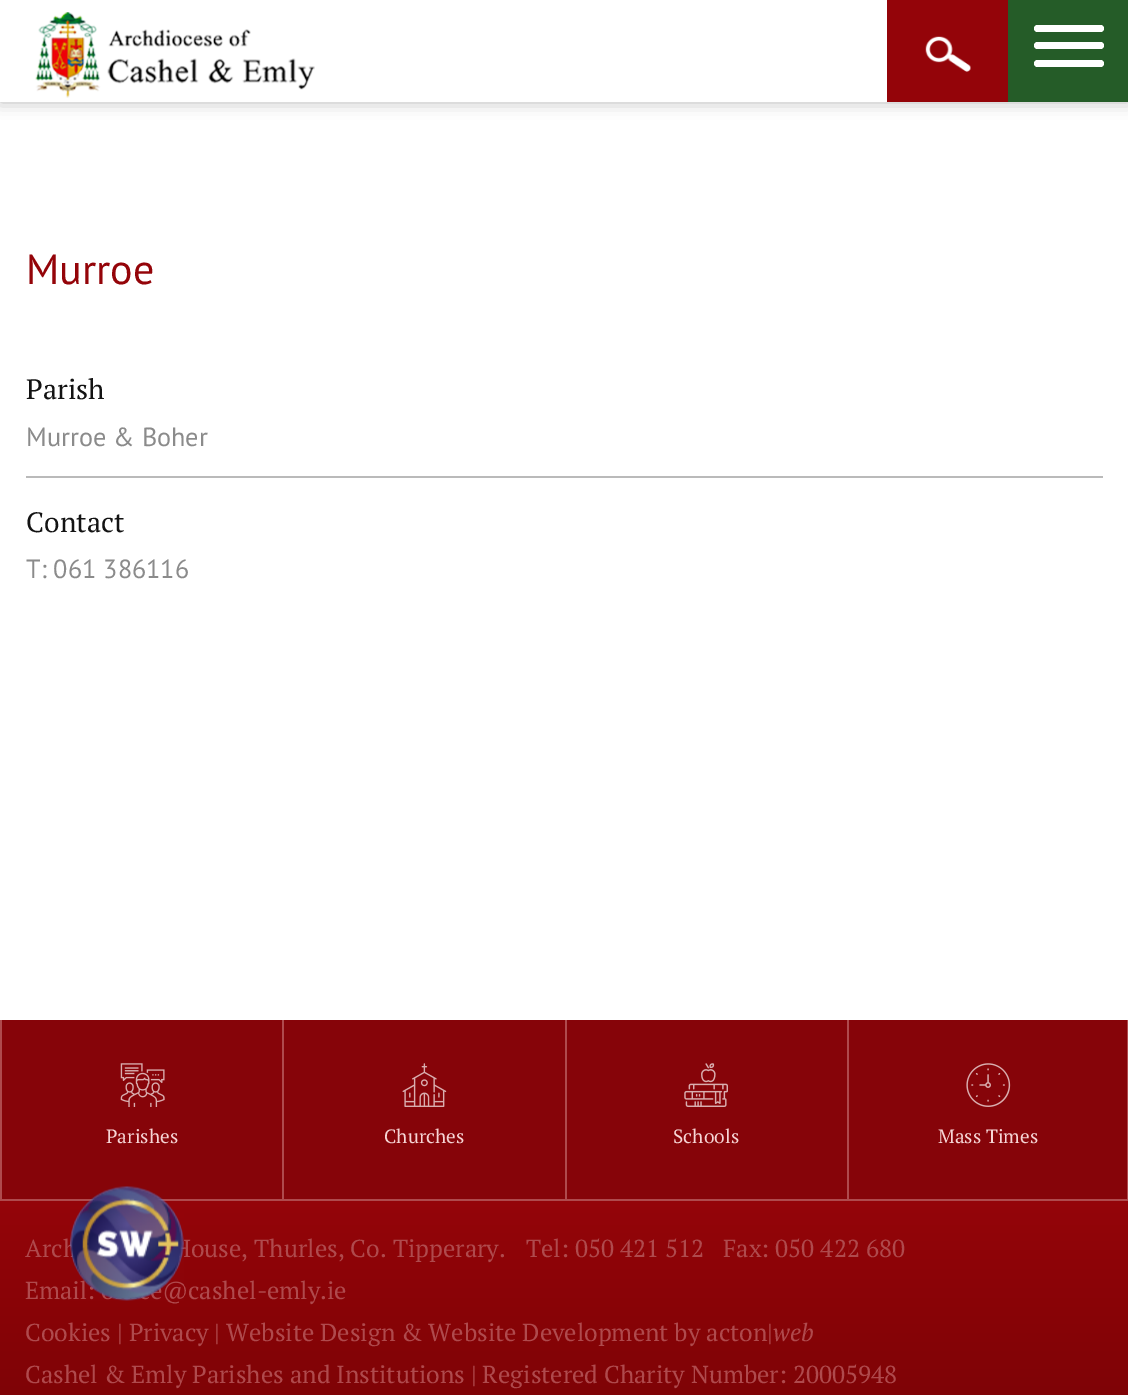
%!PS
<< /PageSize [1128 1395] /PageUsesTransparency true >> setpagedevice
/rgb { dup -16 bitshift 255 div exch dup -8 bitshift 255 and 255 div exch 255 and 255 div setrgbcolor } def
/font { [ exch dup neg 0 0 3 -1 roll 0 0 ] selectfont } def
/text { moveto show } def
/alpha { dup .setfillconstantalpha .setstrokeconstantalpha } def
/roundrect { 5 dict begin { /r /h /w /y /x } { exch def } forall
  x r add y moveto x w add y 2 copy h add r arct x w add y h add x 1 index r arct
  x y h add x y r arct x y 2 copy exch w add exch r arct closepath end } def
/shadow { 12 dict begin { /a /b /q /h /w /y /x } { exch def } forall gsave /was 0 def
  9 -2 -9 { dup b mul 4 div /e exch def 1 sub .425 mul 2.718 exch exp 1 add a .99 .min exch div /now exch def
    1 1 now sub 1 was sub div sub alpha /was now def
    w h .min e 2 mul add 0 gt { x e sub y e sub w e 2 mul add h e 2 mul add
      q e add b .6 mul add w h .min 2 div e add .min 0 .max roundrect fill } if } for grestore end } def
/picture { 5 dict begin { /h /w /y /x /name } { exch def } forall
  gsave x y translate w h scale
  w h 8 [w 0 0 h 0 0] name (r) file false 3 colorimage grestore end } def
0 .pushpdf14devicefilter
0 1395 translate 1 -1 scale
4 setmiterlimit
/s1 { /PTSans-Regular 42 font 16#940409 rgb } def
/s2 { /PTSerif-Regular 28 font 16#131313 rgb } def
/s3 { /PTSans-Regular 26.25 font 16#8B8B8B rgb } def
/s4 { /PTSerif-Regular 19.25 font 16#F6D5D5 rgb } def
/s5 { /PTSerif-Regular 24.5 font 16#AF4A4D rgb } def
/s6 { /PTSerif-Italic 24.5 font 16#AF4A4D rgb } def
16#FFFFFF rgb
0 0 1128 1395 rectfill
16#000000 rgb
0 0 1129 102 0 8 0.27 shadow
16#FFFFFF rgb
0 0 887 102 rectfill
(pic1.raw) 35 12 280 86 picture
16#940409 rgb
887 0 121 102 rectfill
(pic2.raw) 925 36 46 36 picture
16#255C28 rgb
1008 0 120 102 rectfill
16#FFFFFF rgb
1034 25 70 7 3.5 roundrect fill
1034 42 70 7 3.5 roundrect fill
1034 60 70 7 3.5 roundrect fill
s1
(Murroe) 26 284 text
16#BABABA rgb
26 476 1077 2 rectfill
s2
(Parish) 26 399 text
s3
(Murroe & Boher) 26 446 text
s2
(Contact) 26 532 text
s3
(T: 061 386116) 26 578 text
16#860409 rgb
2 1020 1125 179 rectfill
16#AF4A4D rgb
0 1199 1128 2 rectfill
0 1020 2 179 rectfill
(pic3.raw) 120 1063 45 44 picture
s4
(Parishes) 106 1143 text
16#AF4A4D rgb
282 1020 2 179 rectfill
(pic4.raw) 402 1063 45 44 picture
s4
(Churches) 384 1143 text
16#AF4A4D rgb
565 1020 2 179 rectfill
(pic5.raw) 684 1063 44 44 picture
s4
(Schools) 673 1143 text
16#AF4A4D rgb
1127 1020 1 179 rectfill
847 1020 2 179 rectfill
(pic6.raw) 966 1063 45 44 picture
s4
(Mass Times) 938 1143 text
gsave 0 1201 moveto 1128 1201 lineto 1128 1395 lineto 0 1395 lineto closepath clip newpath
<< /ShadingType 2 /ColorSpace /DeviceRGB /Coords [564 1201 564 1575] /Extend [true true] /Function << /FunctionType 3 /Domain [0 1] /Functions [<< /FunctionType 2 /Domain [0 1] /C0 [0.58 0.016 0.035] /C1 [0.58 0.016 0.035] /N 1 >> << /FunctionType 2 /Domain [0 1] /C0 [0.58 0.016 0.035] /C1 [0.447 0.008 0.016] /N 1 >> << /FunctionType 2 /Domain [0 1] /C0 [0.447 0.008 0.016] /C1 [0.447 0.008 0.016] /N 1 >>] /Bounds [0.01 0.84] /Encode [0 1 0 1 0 1] >> >> shfill grestore
s5
(Arch) 25 1257 text
(House, Thurles, Co. Tipperary.) 173 1257 text
(Tel: 050 421 512) 526 1257 text
(Fax: 050 422 680) 723 1257 text
(Email:) 25 1299 text
(@cashel-emly.ie) 162 1299 text
(Cookies | Privacy | Website Design & Website Development by acton|) 25 1341 text
s6
(web) 773 1341 text
s5
(Cashel & Emly Parishes and Institutions | Registered Charity Number: 20005948) 25 1383 text
(pic7.raw) 70 1186 114 115 picture
.poppdf14devicefilter showpage
